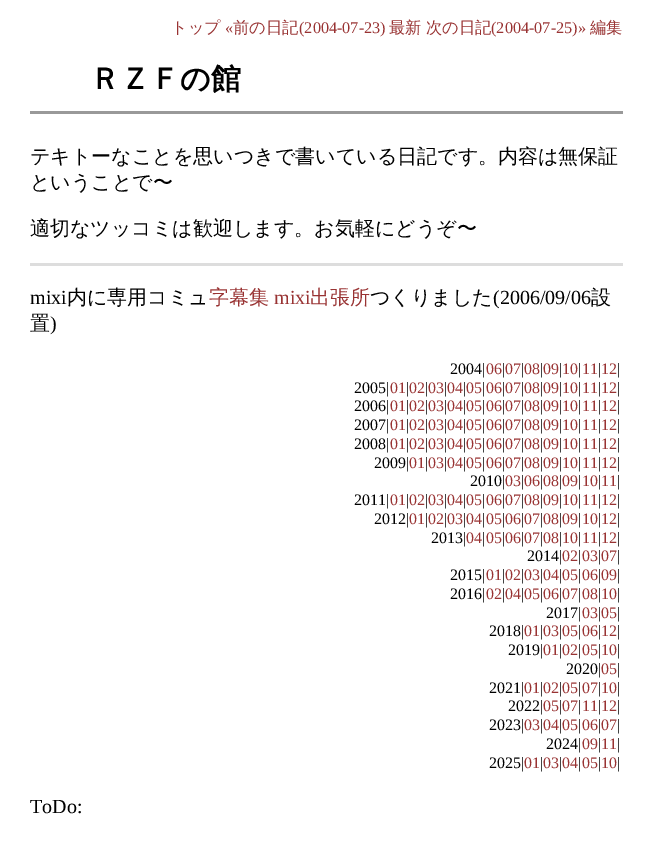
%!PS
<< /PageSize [652 846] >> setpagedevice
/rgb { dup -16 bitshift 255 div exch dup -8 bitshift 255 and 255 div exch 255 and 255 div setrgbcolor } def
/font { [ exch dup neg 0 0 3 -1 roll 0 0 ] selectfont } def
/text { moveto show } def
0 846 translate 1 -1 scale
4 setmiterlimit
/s1 { /WenQuanYiZenHei-Medium 16.25 font 16#993333 rgb } def
/s2 { /LiberationSerif-Regular 16.25 font 16#993333 rgb } def
/s3 { /WenQuanYiZenHei-Bold 30 font 16#000000 rgb } def
/s4 { /WenQuanYiZenHei-Medium 20 font 16#000000 rgb } def
/s5 { /LiberationSerif-Regular 20 font 16#000000 rgb } def
/s6 { /WenQuanYiZenHei-Medium 20 font 16#993333 rgb } def
/s7 { /LiberationSerif-Regular 20 font 16#993333 rgb } def
/s8 { /LiberationSerif-Regular 16 font 16#000000 rgb } def
/s9 { /LiberationSerif-Regular 16 font 16#993333 rgb } def
16#FFFFFF rgb
0 0 652 846 rectfill
s1
(トップ) 171 33 text
s2
(«) 225 33 text
s1
(前の日記) 233 33 text
s2
(\(2004-07-23\)) 299 33 text
s1
(最新) 389 33 text
(次の日記) 426 33 text
s2
(\(2004-07-25\)») 491 33 text
s1
(編集) 590 33 text
16#999999 rgb
30 111 593 3 rectfill
s3
(ＲＺＦの館) 90 89 text
s4
(テキトーなことを思いつきで書いている日記です。内容は無保証) 30 163 text
(ということで〜) 30 189 text
(適切なツッコミは歓迎します。お気軽にどうぞ〜) 30 235 text
16#DDDDDD rgb
30 263 593 3 rectfill
s5
(mixi) 30 304 text
s4
(内に専用コミュ) 67 304 text
s6
(字幕集) 209 304 text
s7
(mixi) 274 304 text
s6
(出張所) 310 304 text
s4
(つくりました) 370 304 text
s5
(\(2006/09/06) 493 304 text
s4
(設) 591 304 text
(置) 30 330 text
s5
(\)) 50 330 text
s8
(2004|) 450 374 text
s9
(06) 486 374 text
s8
(|) 502 374 text
s9
(07) 505 374 text
s8
(|) 521 374 text
s9
(08) 524 374 text
s8
(|) 540 374 text
s9
(09) 543 374 text
s8
(|) 559 374 text
s9
(10) 562 374 text
s8
(|) 578 374 text
s9
(11) 582 374 text
s8
(|) 598 374 text
s9
(12) 601 374 text
s8
(|) 617 374 text
(2005|) 354 393 text
s9
(01) 390 393 text
s8
(|) 406 393 text
s9
(02) 409 393 text
s8
(|) 425 393 text
s9
(03) 428 393 text
s8
(|) 444 393 text
s9
(04) 447 393 text
s8
(|) 463 393 text
s9
(05) 466 393 text
s8
(|) 482 393 text
s9
(06) 486 393 text
s8
(|) 502 393 text
s9
(07) 505 393 text
s8
(|) 521 393 text
s9
(08) 524 393 text
s8
(|) 540 393 text
s9
(09) 543 393 text
s8
(|) 559 393 text
s9
(10) 562 393 text
s8
(|) 578 393 text
s9
(11) 582 393 text
s8
(|) 598 393 text
s9
(12) 601 393 text
s8
(|) 617 393 text
(2006|) 354 411 text
s9
(01) 390 411 text
s8
(|) 406 411 text
s9
(02) 409 411 text
s8
(|) 425 411 text
s9
(03) 428 411 text
s8
(|) 444 411 text
s9
(04) 447 411 text
s8
(|) 463 411 text
s9
(05) 466 411 text
s8
(|) 482 411 text
s9
(06) 486 411 text
s8
(|) 502 411 text
s9
(07) 505 411 text
s8
(|) 521 411 text
s9
(08) 524 411 text
s8
(|) 540 411 text
s9
(09) 543 411 text
s8
(|) 559 411 text
s9
(10) 562 411 text
s8
(|) 578 411 text
s9
(11) 582 411 text
s8
(|) 598 411 text
s9
(12) 601 411 text
s8
(|) 617 411 text
(2007|) 354 430 text
s9
(01) 390 430 text
s8
(|) 406 430 text
s9
(02) 409 430 text
s8
(|) 425 430 text
s9
(03) 428 430 text
s8
(|) 444 430 text
s9
(04) 447 430 text
s8
(|) 463 430 text
s9
(05) 466 430 text
s8
(|) 482 430 text
s9
(06) 486 430 text
s8
(|) 502 430 text
s9
(07) 505 430 text
s8
(|) 521 430 text
s9
(08) 524 430 text
s8
(|) 540 430 text
s9
(09) 543 430 text
s8
(|) 559 430 text
s9
(10) 562 430 text
s8
(|) 578 430 text
s9
(11) 582 430 text
s8
(|) 598 430 text
s9
(12) 601 430 text
s8
(|) 617 430 text
(2008|) 354 449 text
s9
(01) 390 449 text
s8
(|) 406 449 text
s9
(02) 409 449 text
s8
(|) 425 449 text
s9
(03) 428 449 text
s8
(|) 444 449 text
s9
(04) 447 449 text
s8
(|) 463 449 text
s9
(05) 466 449 text
s8
(|) 482 449 text
s9
(06) 486 449 text
s8
(|) 502 449 text
s9
(07) 505 449 text
s8
(|) 521 449 text
s9
(08) 524 449 text
s8
(|) 540 449 text
s9
(09) 543 449 text
s8
(|) 559 449 text
s9
(10) 562 449 text
s8
(|) 578 449 text
s9
(11) 582 449 text
s8
(|) 598 449 text
s9
(12) 601 449 text
s8
(|) 617 449 text
(2009|) 374 468 text
s9
(01) 409 468 text
s8
(|) 425 468 text
s9
(03) 428 468 text
s8
(|) 444 468 text
s9
(04) 447 468 text
s8
(|) 463 468 text
s9
(05) 466 468 text
s8
(|) 482 468 text
s9
(06) 486 468 text
s8
(|) 502 468 text
s9
(07) 505 468 text
s8
(|) 521 468 text
s9
(08) 524 468 text
s8
(|) 540 468 text
s9
(09) 543 468 text
s8
(|) 559 468 text
s9
(10) 562 468 text
s8
(|) 578 468 text
s9
(11) 582 468 text
s8
(|) 598 468 text
s9
(12) 601 468 text
s8
(|) 617 468 text
(2010|) 470 486 text
s9
(03) 505 486 text
s8
(|) 521 486 text
s9
(06) 524 486 text
s8
(|) 540 486 text
s9
(08) 543 486 text
s8
(|) 559 486 text
s9
(09) 562 486 text
s8
(|) 578 486 text
s9
(10) 582 486 text
s8
(|) 598 486 text
s9
(11) 601 486 text
s8
(|) 617 486 text
(2011|) 354 505 text
s9
(01) 390 505 text
s8
(|) 406 505 text
s9
(02) 409 505 text
s8
(|) 425 505 text
s9
(03) 428 505 text
s8
(|) 444 505 text
s9
(04) 447 505 text
s8
(|) 463 505 text
s9
(05) 466 505 text
s8
(|) 482 505 text
s9
(06) 486 505 text
s8
(|) 502 505 text
s9
(07) 505 505 text
s8
(|) 521 505 text
s9
(08) 524 505 text
s8
(|) 540 505 text
s9
(09) 543 505 text
s8
(|) 559 505 text
s9
(10) 562 505 text
s8
(|) 578 505 text
s9
(11) 582 505 text
s8
(|) 598 505 text
s9
(12) 601 505 text
s8
(|) 617 505 text
(2012|) 374 524 text
s9
(01) 409 524 text
s8
(|) 425 524 text
s9
(02) 428 524 text
s8
(|) 444 524 text
s9
(03) 447 524 text
s8
(|) 463 524 text
s9
(04) 466 524 text
s8
(|) 482 524 text
s9
(05) 486 524 text
s8
(|) 502 524 text
s9
(06) 505 524 text
s8
(|) 521 524 text
s9
(07) 524 524 text
s8
(|) 540 524 text
s9
(08) 543 524 text
s8
(|) 559 524 text
s9
(09) 562 524 text
s8
(|) 578 524 text
s9
(10) 582 524 text
s8
(|) 598 524 text
s9
(12) 601 524 text
s8
(|) 617 524 text
(2013|) 431 543 text
s9
(04) 466 543 text
s8
(|) 482 543 text
s9
(05) 486 543 text
s8
(|) 502 543 text
s9
(06) 505 543 text
s8
(|) 521 543 text
s9
(07) 524 543 text
s8
(|) 540 543 text
s9
(08) 543 543 text
s8
(|) 559 543 text
s9
(10) 562 543 text
s8
(|) 578 543 text
s9
(11) 582 543 text
s8
(|) 598 543 text
s9
(12) 601 543 text
s8
(|) 617 543 text
(2014|) 527 561 text
s9
(02) 562 561 text
s8
(|) 578 561 text
s9
(03) 582 561 text
s8
(|) 598 561 text
s9
(07) 601 561 text
s8
(|) 617 561 text
(2015|) 450 580 text
s9
(01) 486 580 text
s8
(|) 502 580 text
s9
(02) 505 580 text
s8
(|) 521 580 text
s9
(03) 524 580 text
s8
(|) 540 580 text
s9
(04) 543 580 text
s8
(|) 559 580 text
s9
(05) 562 580 text
s8
(|) 578 580 text
s9
(06) 582 580 text
s8
(|) 598 580 text
s9
(09) 601 580 text
s8
(|) 617 580 text
(2016|) 450 599 text
s9
(02) 486 599 text
s8
(|) 502 599 text
s9
(04) 505 599 text
s8
(|) 521 599 text
s9
(05) 524 599 text
s8
(|) 540 599 text
s9
(06) 543 599 text
s8
(|) 559 599 text
s9
(07) 562 599 text
s8
(|) 578 599 text
s9
(08) 582 599 text
s8
(|) 598 599 text
s9
(10) 601 599 text
s8
(|) 617 599 text
(2017|) 546 618 text
s9
(03) 582 618 text
s8
(|) 598 618 text
s9
(05) 601 618 text
s8
(|) 617 618 text
(2018|) 489 636 text
s9
(01) 524 636 text
s8
(|) 540 636 text
s9
(03) 543 636 text
s8
(|) 559 636 text
s9
(05) 562 636 text
s8
(|) 578 636 text
s9
(06) 582 636 text
s8
(|) 598 636 text
s9
(12) 601 636 text
s8
(|) 617 636 text
(2019|) 508 655 text
s9
(01) 543 655 text
s8
(|) 559 655 text
s9
(02) 562 655 text
s8
(|) 578 655 text
s9
(05) 582 655 text
s8
(|) 598 655 text
s9
(10) 601 655 text
s8
(|) 617 655 text
(2020|) 566 674 text
s9
(05) 601 674 text
s8
(|) 617 674 text
(2021|) 489 693 text
s9
(01) 524 693 text
s8
(|) 540 693 text
s9
(02) 543 693 text
s8
(|) 559 693 text
s9
(05) 562 693 text
s8
(|) 578 693 text
s9
(07) 582 693 text
s8
(|) 598 693 text
s9
(10) 601 693 text
s8
(|) 617 693 text
(2022|) 508 711 text
s9
(05) 543 711 text
s8
(|) 559 711 text
s9
(07) 562 711 text
s8
(|) 578 711 text
s9
(11) 582 711 text
s8
(|) 598 711 text
s9
(12) 601 711 text
s8
(|) 617 711 text
(2023|) 489 730 text
s9
(03) 524 730 text
s8
(|) 540 730 text
s9
(04) 543 730 text
s8
(|) 559 730 text
s9
(05) 562 730 text
s8
(|) 578 730 text
s9
(06) 582 730 text
s8
(|) 598 730 text
s9
(07) 601 730 text
s8
(|) 617 730 text
(2024|) 546 749 text
s9
(09) 582 749 text
s8
(|) 598 749 text
s9
(11) 601 749 text
s8
(|) 617 749 text
(2025|) 489 768 text
s9
(01) 524 768 text
s8
(|) 540 768 text
s9
(03) 543 768 text
s8
(|) 559 768 text
s9
(04) 562 768 text
s8
(|) 578 768 text
s9
(05) 582 768 text
s8
(|) 598 768 text
s9
(10) 601 768 text
s8
(|) 617 768 text
s5
(ToDo:) 30 813 text
showpage
